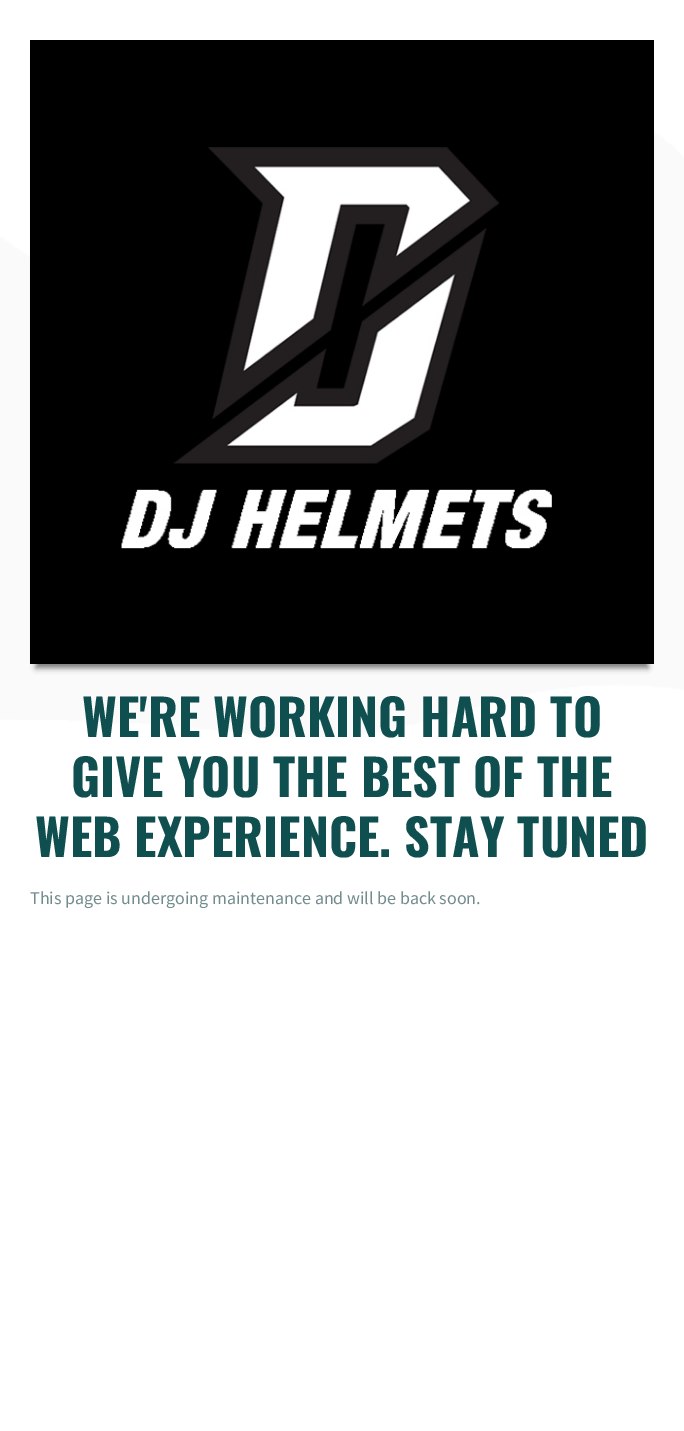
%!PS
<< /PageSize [684 1431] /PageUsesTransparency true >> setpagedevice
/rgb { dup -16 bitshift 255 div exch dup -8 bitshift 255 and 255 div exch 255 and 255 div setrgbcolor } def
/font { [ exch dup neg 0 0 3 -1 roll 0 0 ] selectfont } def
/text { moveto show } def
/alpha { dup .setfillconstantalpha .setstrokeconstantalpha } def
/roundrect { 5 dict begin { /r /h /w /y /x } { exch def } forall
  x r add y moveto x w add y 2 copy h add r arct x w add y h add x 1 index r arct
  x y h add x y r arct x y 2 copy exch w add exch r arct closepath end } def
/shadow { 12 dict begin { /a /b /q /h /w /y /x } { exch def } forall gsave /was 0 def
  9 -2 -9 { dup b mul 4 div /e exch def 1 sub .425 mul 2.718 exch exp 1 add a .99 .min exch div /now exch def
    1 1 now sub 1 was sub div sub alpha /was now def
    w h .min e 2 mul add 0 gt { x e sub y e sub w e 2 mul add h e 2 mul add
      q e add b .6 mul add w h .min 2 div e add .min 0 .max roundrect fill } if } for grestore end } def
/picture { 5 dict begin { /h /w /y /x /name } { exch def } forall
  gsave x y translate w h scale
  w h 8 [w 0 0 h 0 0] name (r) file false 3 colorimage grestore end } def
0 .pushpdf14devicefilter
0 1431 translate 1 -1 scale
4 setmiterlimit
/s1 { /Oswald-Bold 50 font 16#104F50 rgb } def
/s2 { /SourceSansPro-Regular 18 font 16#728B8C rgb } def
16#FFFFFF rgb
0 0 684 1431 rectfill
(pic1.raw) 0 88 684 649 picture
16#777777 rgb
36 56 612 612 0 3 1 shadow
(pic2.raw) 30 40 624 624 picture
s1
(WE'RE WORKING HARD TO) 82 737 text
(GIVE YOU THE BEST OF THE) 71 797 text
(WEB EXPERIENCE. STAY TUNED) 35 857 text
s2
(This page is undergoing maintenance and will be back soon.) 30 904 text
.poppdf14devicefilter showpage
